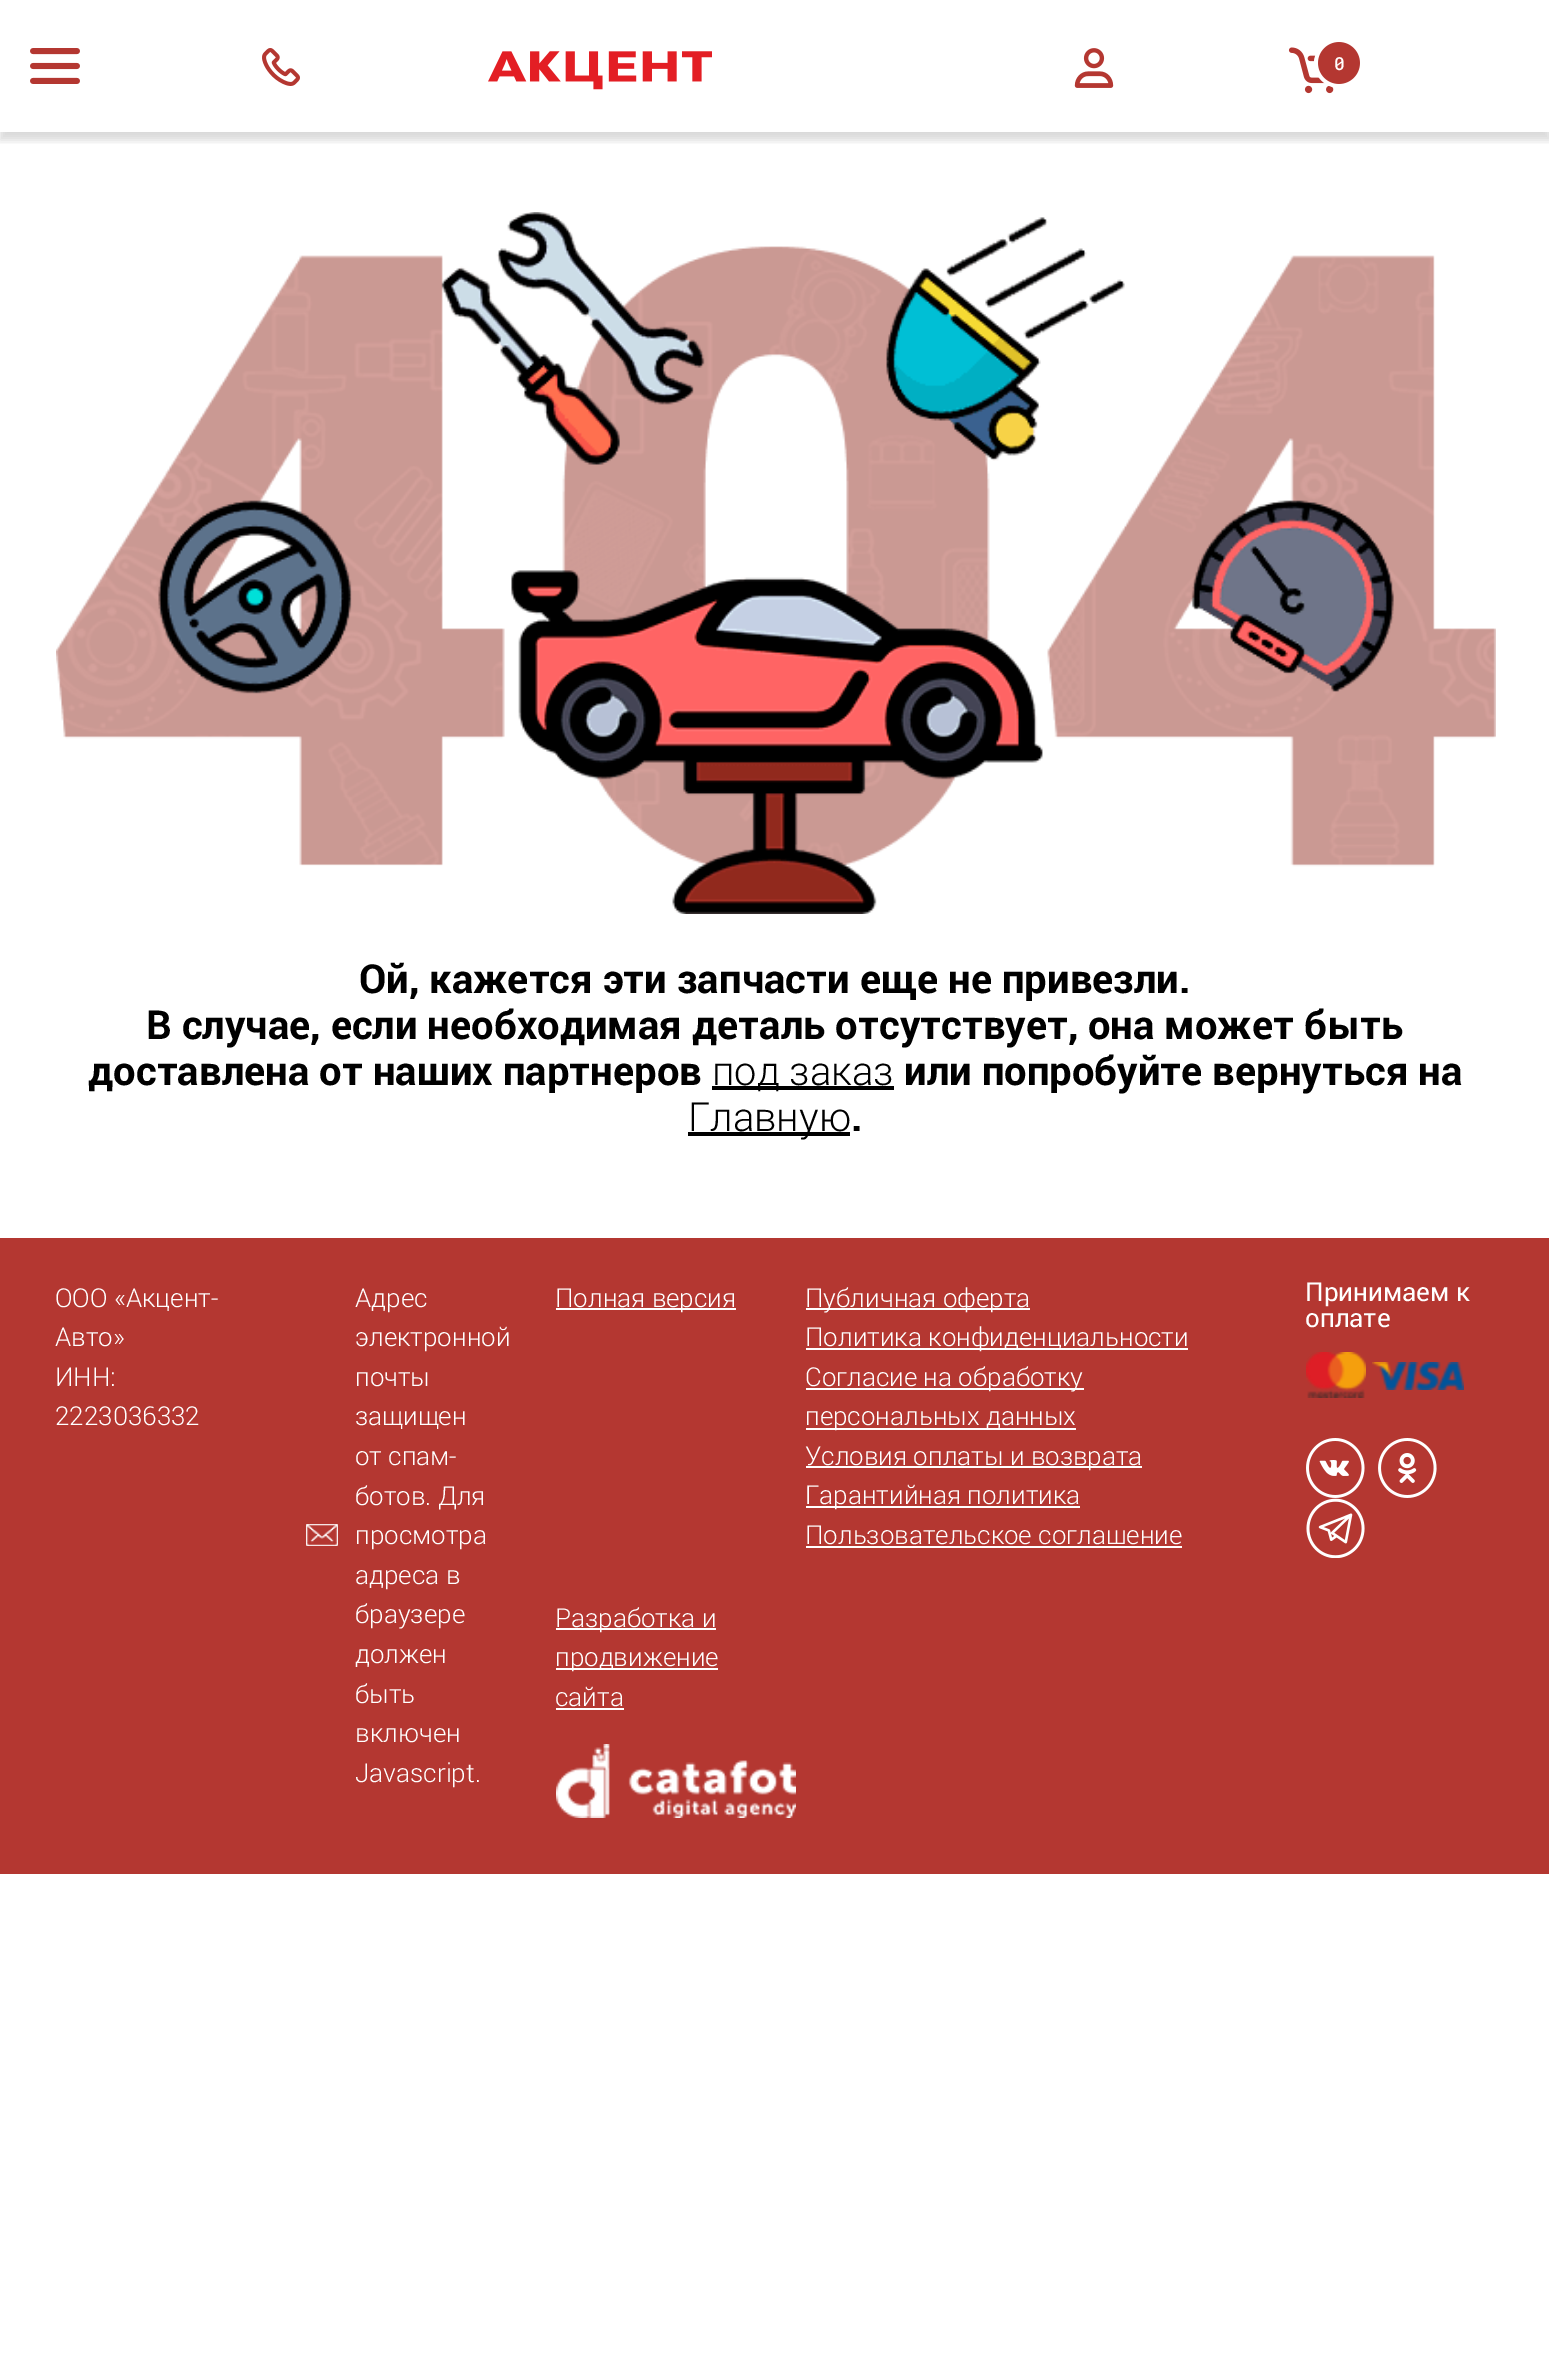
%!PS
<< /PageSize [1549 2370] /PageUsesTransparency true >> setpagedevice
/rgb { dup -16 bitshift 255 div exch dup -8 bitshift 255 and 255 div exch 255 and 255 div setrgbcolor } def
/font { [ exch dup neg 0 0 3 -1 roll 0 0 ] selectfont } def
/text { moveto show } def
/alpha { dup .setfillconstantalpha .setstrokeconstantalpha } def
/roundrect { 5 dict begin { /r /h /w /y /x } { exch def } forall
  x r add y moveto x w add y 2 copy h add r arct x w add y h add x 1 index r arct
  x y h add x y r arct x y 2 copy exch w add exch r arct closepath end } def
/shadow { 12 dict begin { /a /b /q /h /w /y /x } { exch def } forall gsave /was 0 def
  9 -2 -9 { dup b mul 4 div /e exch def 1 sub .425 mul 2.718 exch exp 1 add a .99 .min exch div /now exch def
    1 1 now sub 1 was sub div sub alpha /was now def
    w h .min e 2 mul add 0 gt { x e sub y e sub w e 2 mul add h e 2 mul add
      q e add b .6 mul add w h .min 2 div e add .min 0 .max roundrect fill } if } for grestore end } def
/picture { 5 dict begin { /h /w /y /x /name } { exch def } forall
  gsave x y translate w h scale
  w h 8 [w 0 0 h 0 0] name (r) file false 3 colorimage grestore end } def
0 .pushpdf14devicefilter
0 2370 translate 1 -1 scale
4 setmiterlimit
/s1 { /RobotoMono-Medium 18 font 16#FFFFFF rgb } def
/s2 { /Roboto-Bold 40 font 16#000000 rgb } def
/s3 { /Roboto-Light 40 font 16#000000 rgb } def
/s4 { /Roboto-Light 26 font 16#FFFFFF rgb } def
/s5 { /Roboto-Regular 26 font 16#FFFFFF rgb } def
16#FFFFFF rgb
0 0 1549 2370 rectfill
gsave
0 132 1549 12 rectclip
16#000000 rgb
0 8 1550 132 0 4 0.15 shadow
grestore
(pic1.raw) 30 48 50 36 picture
(pic2.raw) 262 48 38 38 picture
(pic3.raw) 488 51 224 39 picture
(pic4.raw) 1074 48 40 40 picture
(pic5.raw) 1288 42 72 52 picture
s1
(0) 1334 70 text
(pic6.raw) 56 212 1440 702 picture
s2
(Ой, кажется эти запчасти еще не привезли.) 359 993 text
(В случае, если необходимая деталь отсутствует, она может быть) 146 1039 text
(доставлена от наших партнеров) 88 1085 text
712 1086 182 4 rectfill
s3
(под заказ) 712 1085 text
s2
(или попробуйте вернуться на) 904 1085 text
688 1132 162 4 rectfill
s3
(Главную) 688 1131 text
s2
(.) 851 1131 text
16#B43731 rgb
0 1238 1549 636 rectfill
s4
(ООО «Акцент-) 55 1307 text
(Авто») 55 1346 text
(ИНН:) 55 1386 text
(2223036332) 55 1425 text
(pic7.raw) 306 1524 32 22 picture
(Адрес) 355 1307 text
(электронной) 355 1346 text
(почты) 355 1386 text
(защищен) 355 1425 text
(от спам-) 355 1465 text
(ботов. Для) 355 1505 text
(просмотра) 355 1544 text
(адреса в) 355 1584 text
(браузере) 355 1623 text
(должен) 355 1663 text
(быть) 355 1703 text
(включен) 355 1742 text
(Javascript.) 355 1782 text
556 1308 180 2 rectfill
(Полная версия) 555 1307 text
806 1308 224 2 rectfill
(Публичная оферта) 805 1307 text
806 1348 382 2 rectfill
(Политика конфиденциальности) 805 1346 text
806 1388 278 2 rectfill
(Согласие на обработку) 805 1386 text
806 1428 270 2 rectfill
(персональных данных) 805 1425 text
806 1466 336 2 rectfill
(Условия оплаты и возврата) 805 1465 text
806 1506 274 2 rectfill
(Гарантийная политика) 805 1504 text
(Пользовательское соглашение) 805 1544 text
806 1546 376 2 rectfill
s5
(Принимаем к) 1305 1301 text
(оплате) 1305 1327 text
(pic8.raw) 1306 1352 60 46 picture
(pic9.raw) 1372 1362 92 28 picture
(pic10.raw) 1306 1438 59 60 picture
(pic11.raw) 1378 1438 59 60 picture
(pic12.raw) 1306 1498 59 60 picture
556 1628 160 2 rectfill
s4
(Разработка и) 555 1627 text
556 1668 162 2 rectfill
(продвижение) 555 1666 text
(сайта) 555 1706 text
556 1708 68 2 rectfill
(pic13.raw) 556 1744 240 74 picture
.poppdf14devicefilter showpage
